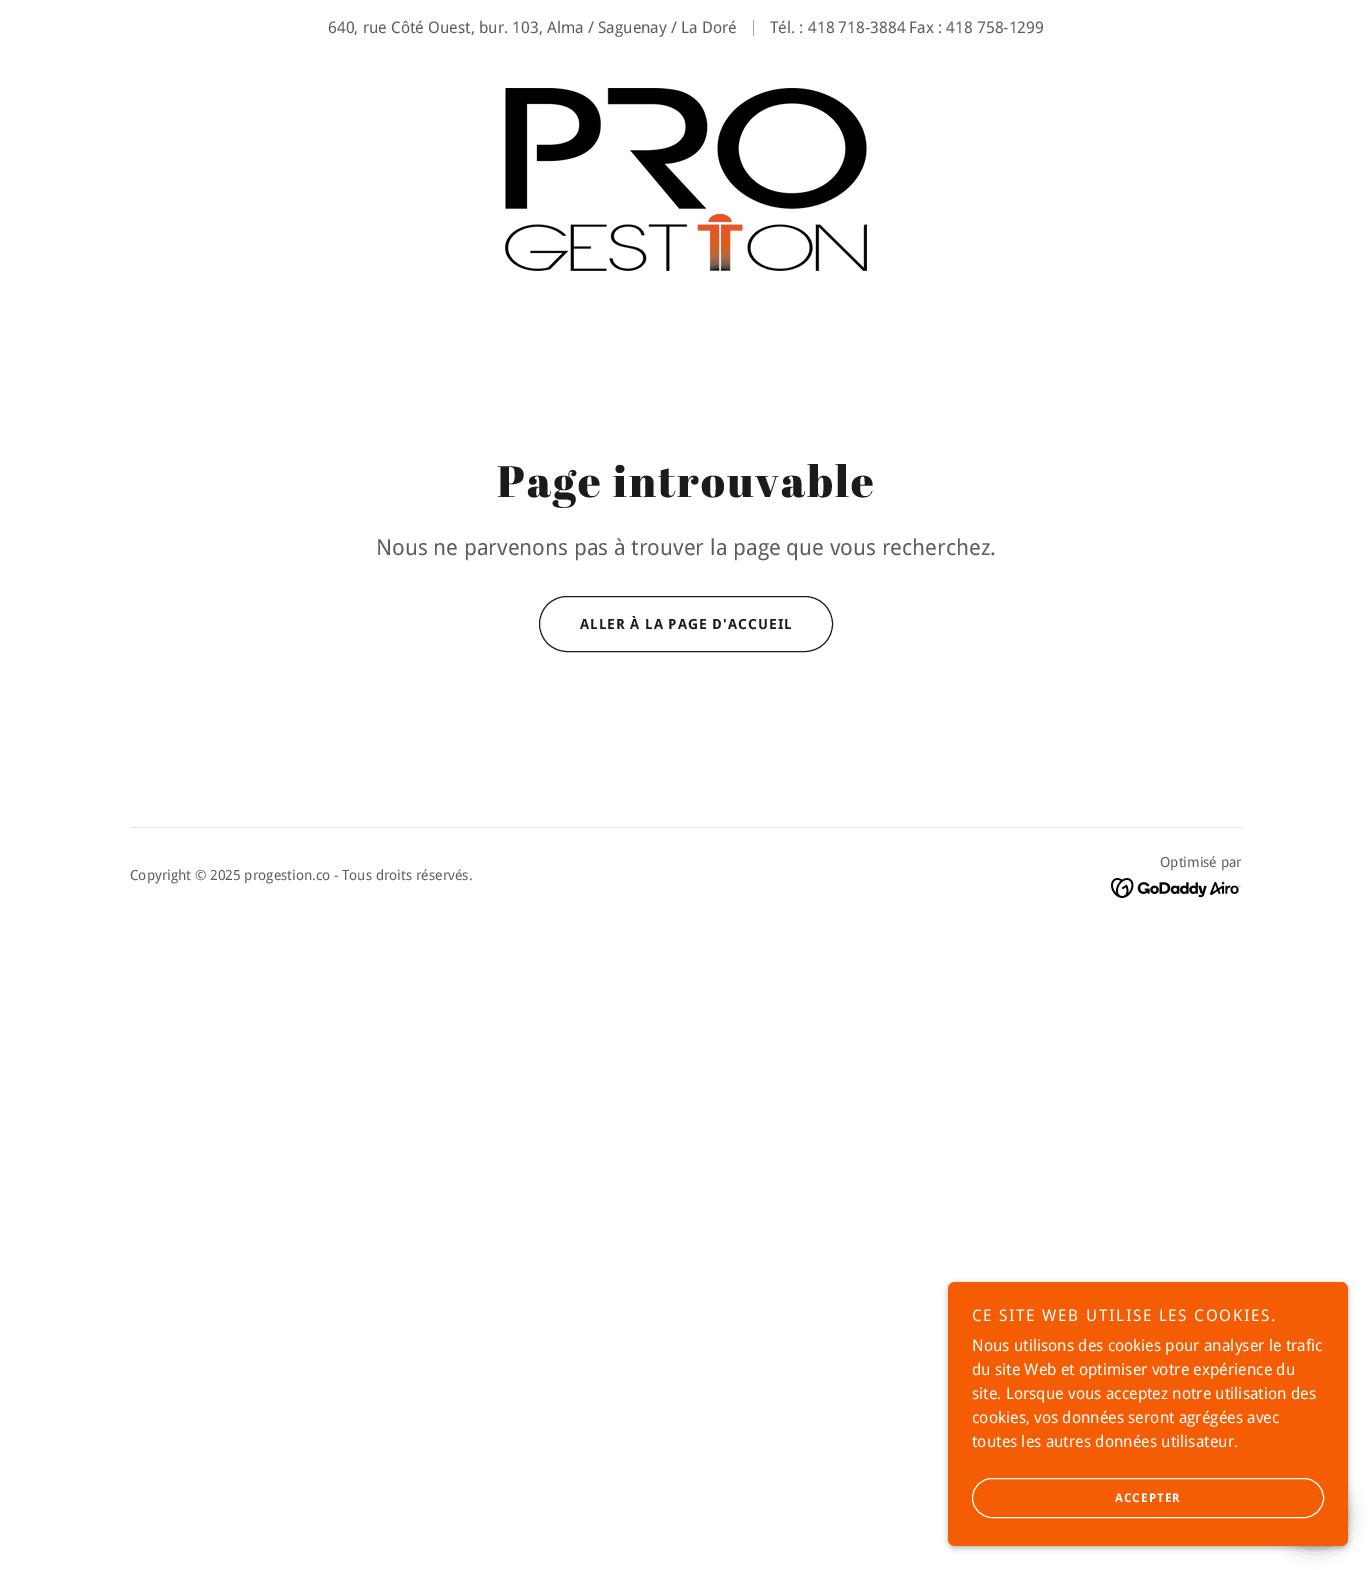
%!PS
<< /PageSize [1372 1570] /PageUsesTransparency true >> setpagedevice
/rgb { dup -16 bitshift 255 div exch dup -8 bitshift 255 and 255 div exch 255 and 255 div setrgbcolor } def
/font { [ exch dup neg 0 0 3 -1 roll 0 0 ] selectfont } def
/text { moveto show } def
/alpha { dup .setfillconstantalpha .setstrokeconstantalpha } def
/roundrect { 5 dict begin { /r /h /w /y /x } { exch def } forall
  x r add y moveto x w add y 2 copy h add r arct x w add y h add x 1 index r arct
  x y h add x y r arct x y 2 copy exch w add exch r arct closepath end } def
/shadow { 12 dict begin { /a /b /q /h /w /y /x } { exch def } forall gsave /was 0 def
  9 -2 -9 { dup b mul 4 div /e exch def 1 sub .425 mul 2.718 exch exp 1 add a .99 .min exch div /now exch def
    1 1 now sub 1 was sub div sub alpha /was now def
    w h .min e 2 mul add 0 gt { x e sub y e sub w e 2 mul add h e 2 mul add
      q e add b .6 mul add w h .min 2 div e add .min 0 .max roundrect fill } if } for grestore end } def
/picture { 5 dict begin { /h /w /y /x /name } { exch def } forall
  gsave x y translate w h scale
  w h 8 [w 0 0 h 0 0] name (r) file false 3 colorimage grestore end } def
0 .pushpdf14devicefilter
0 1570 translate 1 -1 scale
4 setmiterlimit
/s1 { /DroidSans-Regular 16 font 16#5E5E5E rgb } def
/s2 { /DroidSans-Regular 22 font 16#5E5E5E rgb } def
/s3 { /DroidSans-Regular 14 font 16#5E5E5E rgb } def
/s4 { /DroidSans-Regular 16 font 16#FFFFFF rgb } def
16#FFFFFF rgb
0 0 1372 1570 rectfill
s1
(640, rue Côté Ouest, bur. 103, Alma / Saguenay / La Doré) 328 33 text
16#A4A4A4 rgb
753 20 1 16 rectfill
s1
(Tél. : 418 718-3884 Fax : 418 758-1299) 770 33 text
(pic1.raw) 505 88 362 183 picture
/AbrilFatface-Regular 44 font
16#1B1B1B rgb
497 497 moveto 2 0 (Page introuvable) ashow
s2
(Nous ne parvenons pas à trouver la page que vous recherchez.) 376 555 text
16#1B1B1B rgb
539.5 596.5 293 55 27.5 roundrect stroke
/DroidSans-Bold 14 font
580 629 moveto 1 0 (ALLER À LA PAGE D'ACCUEIL) ashow
16#E2E2E2 rgb
130 827 1112 1 rectfill
s3
(Optimisé par) 1160 867 text
(pic2.raw) 1111 878 130 20 picture
(Copyright © 2025 progestion.co - Tous droits réservés.) 130 880 text
16#000000 rgb
948 1284 400 264 7 3 0.3 shadow
1283 1484 65 65 32.5 9 0.25 shadow
16#F55D05 rgb
948 1282 400 264 7 roundrect fill
/DroidSans-Regular 16 font
16#FFFFFF rgb
972 1321 moveto 1.7 0 (CE SITE WEB UTILISE LES COOKIES.) ashow
(Nous utilisons des cookies pour analyser le trafic) 972 1351 text
(du site Web et optimiser votre expérience du) 972 1375 text
(site. Lorsque vous acceptez notre utilisation des) 972 1399 text
(cookies, vos données seront agrégées avec) 972 1423 text
(toutes les autres données utilisateur.) 972 1447 text
972.5 1478.5 351 39 19.5 roundrect stroke
/DroidSans-Bold 12 font
1115 1502 moveto 1 0 (ACCEPTER) ashow
.poppdf14devicefilter showpage
